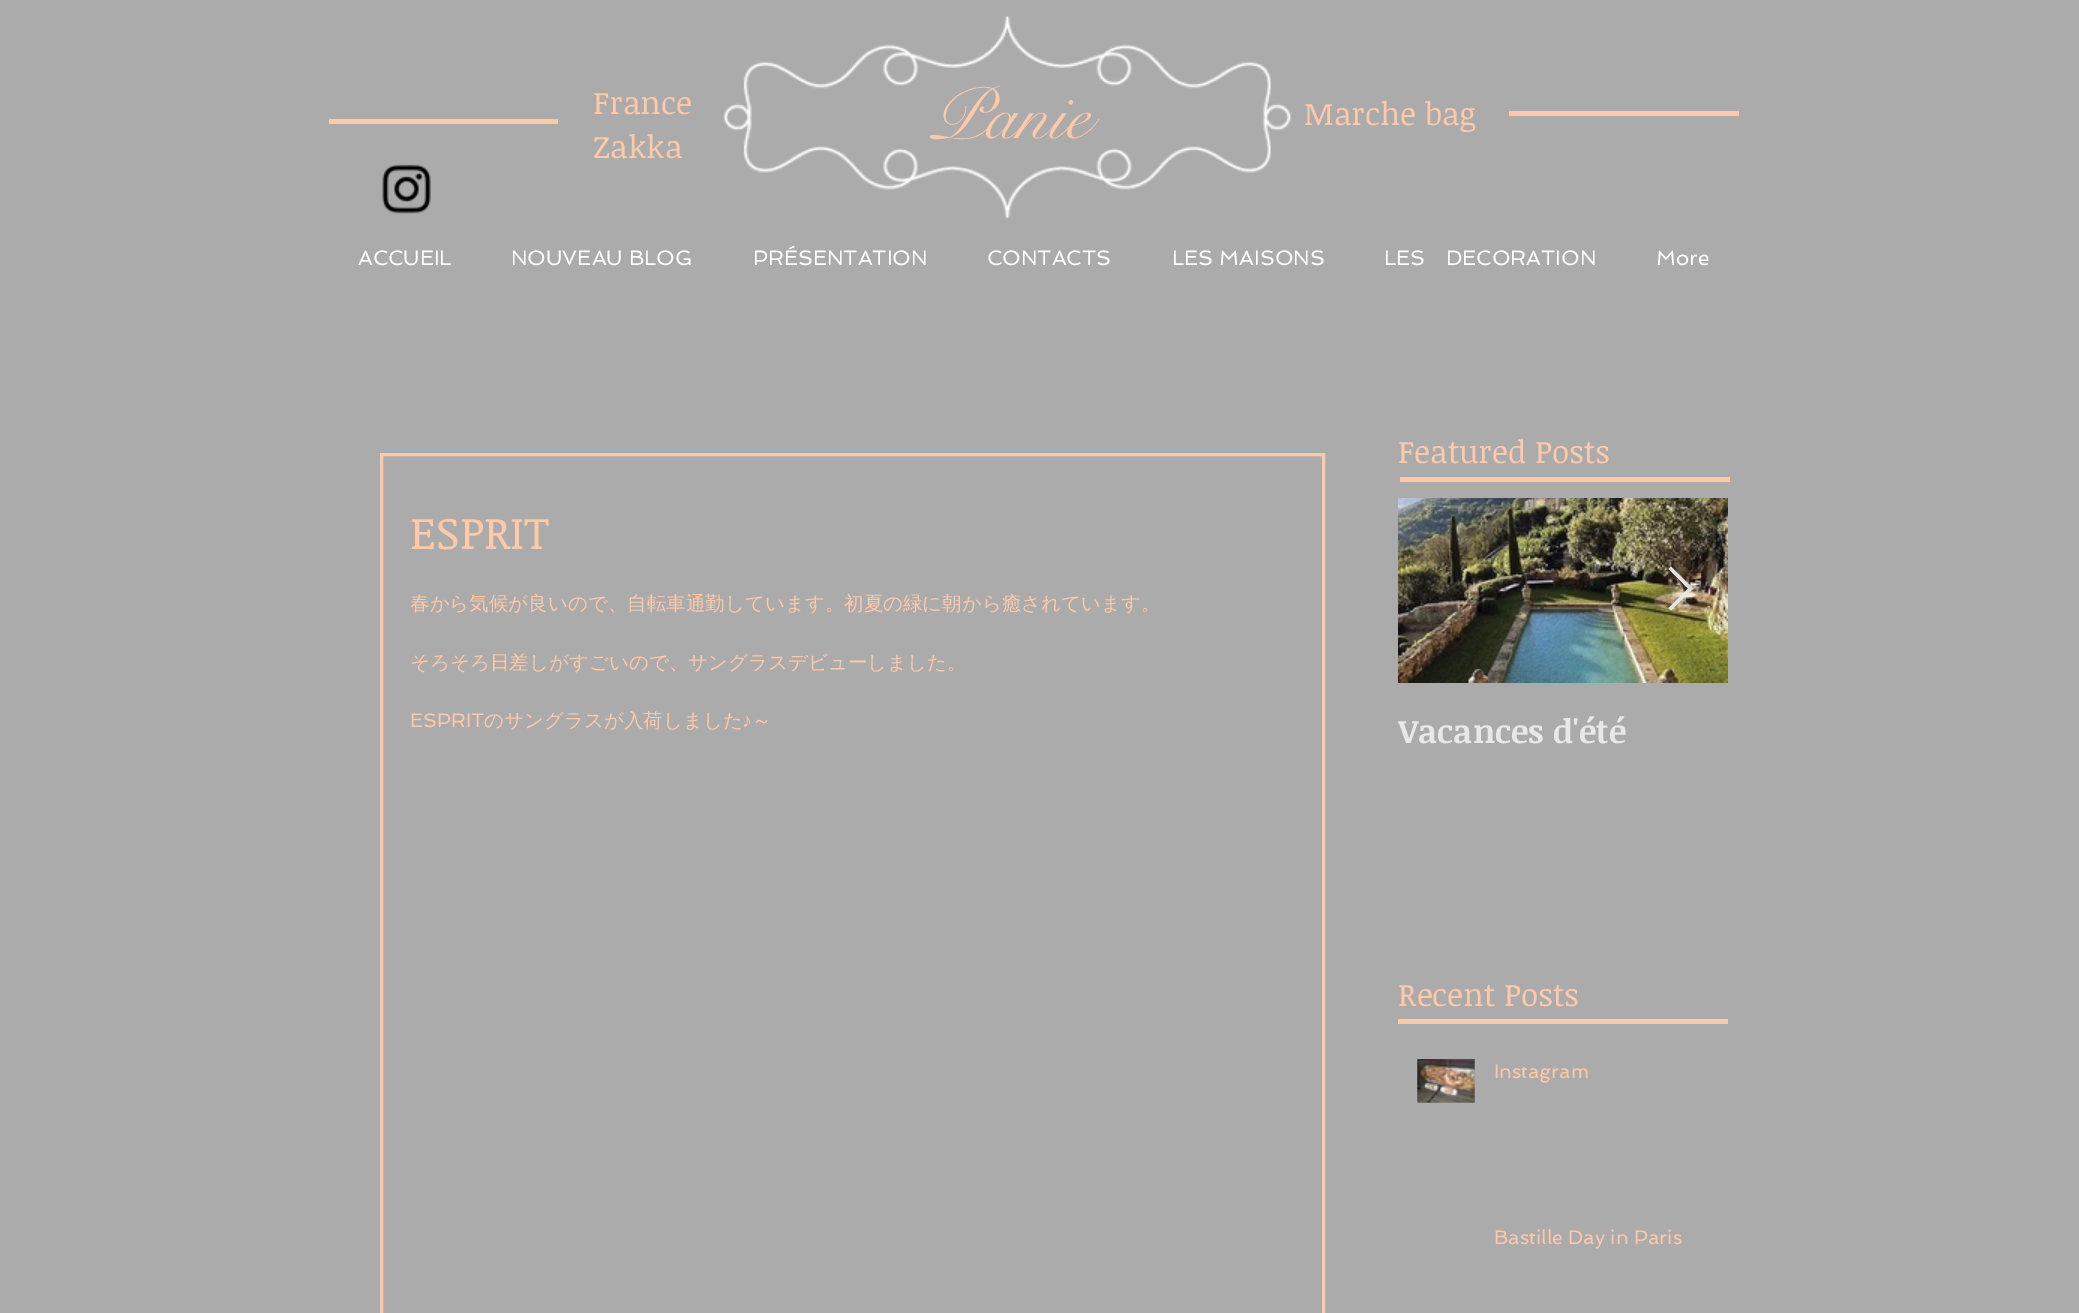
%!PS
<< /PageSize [2079 1313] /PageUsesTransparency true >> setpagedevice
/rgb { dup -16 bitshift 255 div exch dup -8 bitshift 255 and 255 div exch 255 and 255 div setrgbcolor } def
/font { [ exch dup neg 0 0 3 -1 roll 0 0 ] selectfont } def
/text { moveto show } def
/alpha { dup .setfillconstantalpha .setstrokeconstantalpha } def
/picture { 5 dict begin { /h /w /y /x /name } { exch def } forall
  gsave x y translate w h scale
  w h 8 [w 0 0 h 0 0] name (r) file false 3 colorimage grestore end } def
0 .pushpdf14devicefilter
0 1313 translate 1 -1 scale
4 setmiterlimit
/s1 { /NoticiaText-Regular 31.5 font 16#FEC9A9 rgb } def
/s2 { /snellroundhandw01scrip-Regular 72 font 16#FEC9A9 rgb } def
/s3 { /Spinnaker-Regular 21 font 16#FFFFFF rgb } def
/s4 { /NoticiaText-Regular 45 font 16#FEC9A9 rgb } def
/s5 { /WenQuanYiZenHei-Medium 19.5 font 16#FEC9A9 rgb } def
/s6 { /Spinnaker-Regular 19.5 font 16#FEC9A9 rgb } def
/s7 { /LiberationSans-Regular 19.5 font 16#FEC9A9 rgb } def
/s8 { /NoticiaText-Bold 33 font 16#E8E8E8 rgb } def
16#ABABAB rgb
0 0 2079 1313 rectfill
(pic1.raw) 723 16 569 203 picture
s1
(France) 593 114 text
(Zakka) 593 158 text
s2
(Panie) 930 138 text
s1
(Marche bag) 1304 125 text
1509 111 230 5 rectfill
329 119 229 5 rectfill
(pic2.raw) 382 164 49 50 picture
s3
(ACCUEIL) 358 265 text
(NOUVEAU BLOG) 511 265 text
(PRÉSENTATION) 753 265 text
(CONTACTS) 987 265 text
(LES MAISONS) 1172 265 text
(LES) 1384 265 text
(DECORATION) 1446 265 text
(More) 1656 265 text
s1
(Featured Posts) 1398 463 text
1400 477 330 5 rectfill
3 setlinewidth
381.5 454.5 942 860 rectstroke
s4
(ESPRIT) 410 549 text
s5
(春から気候が良いので、自転車通勤しています。初夏の緑に朝から癒されています。) 410 610 text
(そろそろ日差しがすごいので、サングラスデビューしました。) 410 669 text
s6
(ESPRIT) 410 727 text
s5
(のサングラスが入荷しました) 484 727 text
s7
(♪) 742 727 text
s5
(～) 752 727 text
(pic3.raw) 1398 498 330 185 picture
0.9 alpha
16#E8E8E8 rgb
1669 569 moveto 1671 567 lineto 1692 589 lineto 1671 610 lineto 1669 608 lineto 1689 589 lineto closepath fill
1.2 setlinewidth
1669.5 569 moveto 1671 567.5 lineto 1692.5 588.5 lineto 1671 609.5 lineto 1669.5 608 lineto 1689 588.5 lineto closepath stroke
gsave
1398 707 330 45 rectclip
1 alpha
s8
(Vacances d'été) 1398 743 text
grestore
1 alpha
s1
(Recent Posts) 1398 1006 text
1398 1019 330 5 rectfill
(pic4.raw) 1417 1059 58 44 picture
(pic5.raw) 1417 1059 58 44 picture
s6
(Instagram) 1494 1078 text
(Bastille Day in Paris) 1494 1244 text
.poppdf14devicefilter showpage
